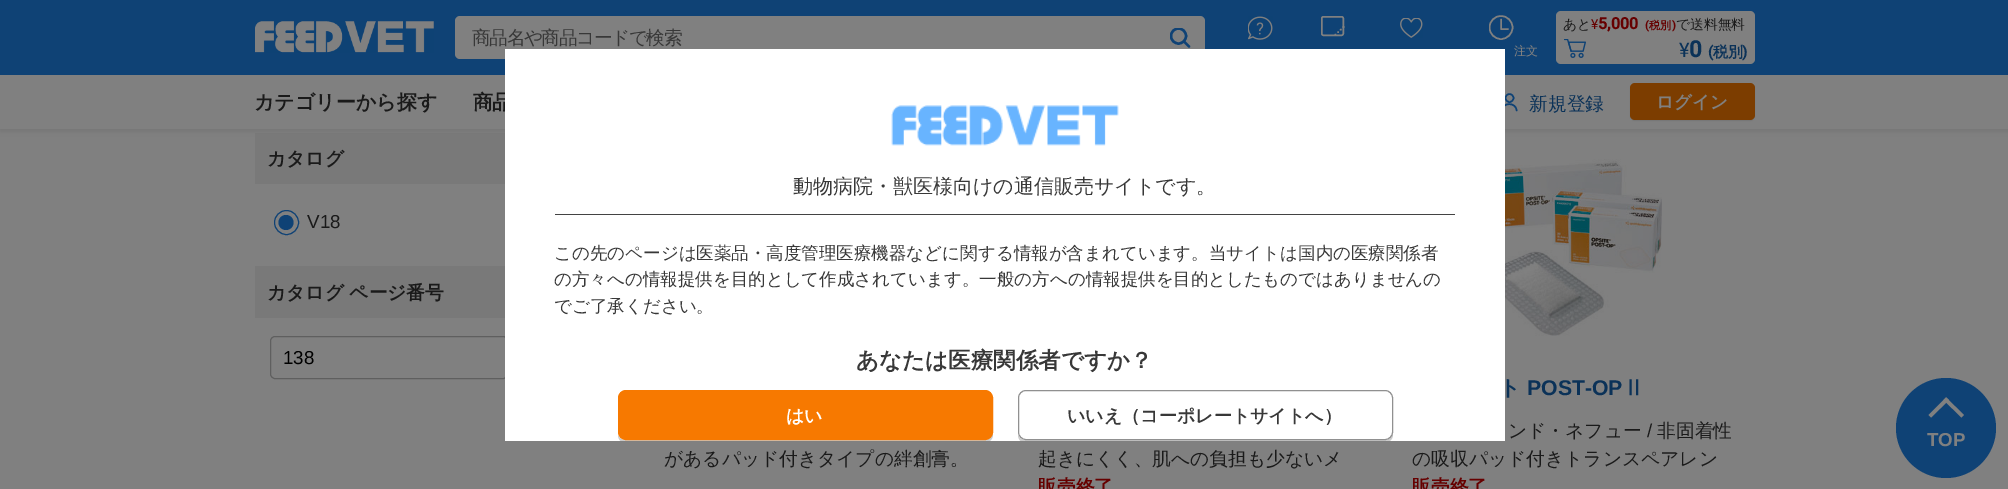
%!PS
<< /PageSize [2008 489] /PageUsesTransparency true >> setpagedevice
/rgb { dup -16 bitshift 255 div exch dup -8 bitshift 255 and 255 div exch 255 and 255 div setrgbcolor } def
/font { [ exch dup neg 0 0 3 -1 roll 0 0 ] selectfont } def
/text { moveto show } def
/alpha { dup .setfillconstantalpha .setstrokeconstantalpha } def
/circle { newpath 0 360 arc closepath } def
/roundrect { 5 dict begin { /r /h /w /y /x } { exch def } forall
  x r add y moveto x w add y 2 copy h add r arct x w add y h add x 1 index r arct
  x y h add x y r arct x y 2 copy exch w add exch r arct closepath end } def
/shadow { 12 dict begin { /a /b /q /h /w /y /x } { exch def } forall gsave /was 0 def
  9 -2 -9 { dup b mul 4 div /e exch def 1 sub .425 mul 2.718 exch exp 1 add a .99 .min exch div /now exch def
    1 1 now sub 1 was sub div sub alpha /was now def
    w h .min e 2 mul add 0 gt { x e sub y e sub w e 2 mul add h e 2 mul add
      q e add b .6 mul add w h .min 2 div e add .min 0 .max roundrect fill } if } for grestore end } def
/picture { 5 dict begin { /h /w /y /x /name } { exch def } forall
  gsave x y translate w h scale
  w h 8 [w 0 0 h 0 0] name (r) file false 3 colorimage grestore end } def
0 .pushpdf14devicefilter
0 489 translate 1 -1 scale
4 setmiterlimit
/s1 { /WenQuanYiZenHei-Medium 13.75 font 16#1A1A1A rgb } def
/s2 { /Roboto-Regular 13.75 font 16#660000 rgb } def
/s3 { /Roboto-Bold 16 font 16#660000 rgb } def
/s4 { /Roboto-Bold 11 font 16#660000 rgb } def
/s5 { /WenQuanYiZenHei-Bold 11 font 16#660000 rgb } def
/s6 { /Roboto-Bold 15 font 16#0B3258 rgb } def
/s7 { /WenQuanYiZenHei-Bold 15 font 16#0B3258 rgb } def
/s8 { /WenQuanYiZenHei-Medium 12 font 16#808080 rgb } def
/s9 { /WenQuanYiZenHei-Bold 20 font 16#1A1A1A rgb } def
/s10 { /WenQuanYiZenHei-Medium 18.75 font 16#0B3258 rgb } def
/s11 { /WenQuanYiZenHei-Bold 17.5 font 16#808080 rgb } def
/s12 { /WenQuanYiZenHei-Bold 18.75 font 16#1A1A1A rgb } def
/s13 { /LiberationSans-Regular 18.75 font 16#1A1A1A rgb } def
/s14 { /LiberationSans-Regular 18.75 font 16#000000 rgb } def
/s15 { /WenQuanYiZenHei-Medium 18.75 font 16#1A1A1A rgb } def
/s16 { /WenQuanYiZenHei-Bold 18.75 font 16#660000 rgb } def
/s17 { /WenQuanYiZenHei-Bold 21.25 font 16#0B3258 rgb } def
/s18 { /LiberationSans-Bold 21.25 font 16#0B3258 rgb } def
/s19 { /LiberationSans-Bold 18.75 font 16#808080 rgb } def
/s20 { /WenQuanYiZenHei-Medium 20 font 16#383838 rgb } def
/s21 { /WenQuanYiZenHei-Medium 17.5 font 16#383838 rgb } def
/s22 { /WenQuanYiZenHei-Bold 22.5 font 16#383838 rgb } def
/s23 { /WenQuanYiZenHei-Bold 18 font 16#FFFFFF rgb } def
/s24 { /WenQuanYiZenHei-Bold 18 font 16#383838 rgb } def
16#808080 rgb
0 0 2008 489 rectfill
16#797979 rgb
255 133 250 51 rectfill
16#000000 rgb
0 3 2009 128 0 2.5 0.1 shadow
16#808080 rgb
0 75 2008 54 rectfill
16#0F4275 rgb
0 0 2008 75 rectfill
(pic1.raw) 255 21 179 32 picture
16#808080 rgb
455 16 750 43 5 roundrect fill
/WenQuanYiZenHei-Medium 18.75 font
16#383838 rgb
472 44 moveto -1.5 0 (商品名や商品コードで検索) ashow
gsave
1170 28 20 20 rectclip
16#0F4275 rgb
2.4 setlinewidth
1178.5 36 7.5 circle stroke
grestore
16#0F4275 rgb
2.4 setlinewidth
1 setlinecap
1 setlinejoin
1184.5 42 moveto 1189 46.5 lineto stroke
16#808080 rgb
1556 11 199 53 5 roundrect fill
s1
(あと) 1563 29 text
s2
(¥) 1591 29 text
s3
(5,000) 1598 29 text
s4
(\() 1645 29 text
s5
(税別) 1649 29 text
s4
(\)) 1672 29 text
s1
(で送料無料) 1676 29 text
(pic2.raw) 1564 39 22 19 picture
/Roboto-Regular 20 font
16#0B3258 rgb
1679 57 moveto -4 0 (¥) ashow
/Roboto-Bold 22.5 font
1689 57 moveto -1 0 (0) ashow
s6
(\() 1708 57 text
s7
(税別) 1713 57 text
s6
(\)) 1742 57 text
(pic3.raw) 1248 16 25 24 picture
16#808080 rgb
1.5 setlinewidth
0 setlinecap
0 setlinejoin
1321.75 16.75 21.5 18.5 1.75 roundrect stroke
1.9 setlinewidth
1 setlinecap
[0.12 3.6] 0 setdash
1343.5 27 moveto 1333 37 lineto stroke
(pic4.raw) 1400 18 23 20 picture
gsave
1489 15 25 25 rectclip
1.5 setlinewidth
0 setlinecap
[] 0 setdash
1501 27.5 11.5 circle stroke
grestore
1.5 setlinewidth
1 setlinejoin
[] 0 setdash
1501 19.5 moveto 1501 29 lineto 1508 29 lineto stroke
s8
(注文) 1514 55 text
s9
(カテゴリーから探す) 254 109 text
473 109 moveto -1 0 (商品) ashow
16#0F4275 rgb
0 setlinecap
0 setlinejoin
1509.5 98 4 circle stroke
1 setlinecap
1 setlinejoin
1502 110.5 moveto 1502 102 1516.5 102 1516.5 110.5 curveto stroke
s10
(新規登録) 1529 110 text
16#000000 rgb
1630 84 125 37 5 0.5 0.1 shadow
16#7C3D00 rgb
1630 83 125 37 5 roundrect fill
s11
(ログイン) 1656 108 text
s12
(カタログ) 267 165 text
16#0F4275 rgb
1 setlinewidth
0 setlinecap
0 setlinejoin
286.5 222.5 12 circle stroke
286 222.5 7.5 circle fill
s13
(V18) 307 228 text
16#797979 rgb
255 266 250 52 rectfill
s12
(カタログ ページ番号) 267 299 text
16#5F5F5F rgb
270.5 336.5 237 42 4.5 roundrect stroke
s14
(138) 283 364 text
s15
(があるパッド付きタイプの絆創膏。) 664 465 text
(起きにくく、肌への負担も少ないメ) 1038 465 text
s16
(販売終了) 1038 493 text
(pic5.raw) 1505 159 157 177 picture
s17
(ト) 1499 395 text
s18
(POST-OP) 1527 395 text
s17
(Ⅱ) 1623 395 text
s15
(ンド・ネフュー) 1508 437 text
s13
(/) 1647 437 text
s15
(非固着性) 1657 437 text
(の吸収パッド付きトランスペアレン) 1412 465 text
s16
(販売終了) 1412 493 text
16#0F4275 rgb
1946 428 50 circle fill
16#808080 rgb
1931 417.5 moveto 1928.5 415 lineto 1946 397.5 lineto 1949 400 lineto closepath fill
1961.5 417.5 moveto 1943.5 400 lineto 1946 397.5 lineto 1964 415 lineto closepath fill
s19
(TOP) 1927 446 text
16#FFFFFF rgb
505 49 1000 392 rectfill
16#434343 rgb
555 214 900 1 rectfill
(pic6.raw) 891 105 228 41 picture
s20
(動物病院・獣医様向けの通信販売サイトです。) 793 193 text
s21
(この先のページは医薬品・高度管理医療機器などに関する情報が含まれています。当サイトは国内の医療関係者) 554 259 text
(の方々への情報提供を目的として作成されています。一般の方への情報提供を目的としたものではありませんの) 554 285 text
(でご了承ください。) 554 312 text
s22
(あなたは医療関係者ですか？) 856 368 text
gsave
505 49 1000 392 rectclip
16#CCCCCC rgb
618 435 moveto 618 440 622 443 626 443 curveto 985 443 lineto 989 443 993 439 993 435 curveto 993 401 lineto 992 398 lineto 992 433 lineto 992 437 989 440 985 440 curveto 625 440 lineto 622 440 619 438 618 435 curveto closepath fill
grestore
16#F77900 rgb
618.5 390.5 374 49 7.5 roundrect gsave fill grestore
stroke
s23
(はい) 786 422 text
gsave
505 49 1000 392 rectclip
16#CCCCCC rgb
1018 435 moveto 1018 440 1022 443 1026 443 curveto 1385 443 lineto 1389 443 1393 439 1393 435 curveto 1393 401 lineto 1392 398 lineto 1392 433 lineto 1392 437 1389 440 1385 440 curveto 1025 440 lineto 1022 440 1019 438 1018 435 curveto closepath fill
grestore
1018.5 390.5 374 49 7.5 roundrect gsave fill grestore
16#909090 rgb
stroke
s24
(いいえ（コーポレートサイトへ）) 1067 422 text
.poppdf14devicefilter showpage
